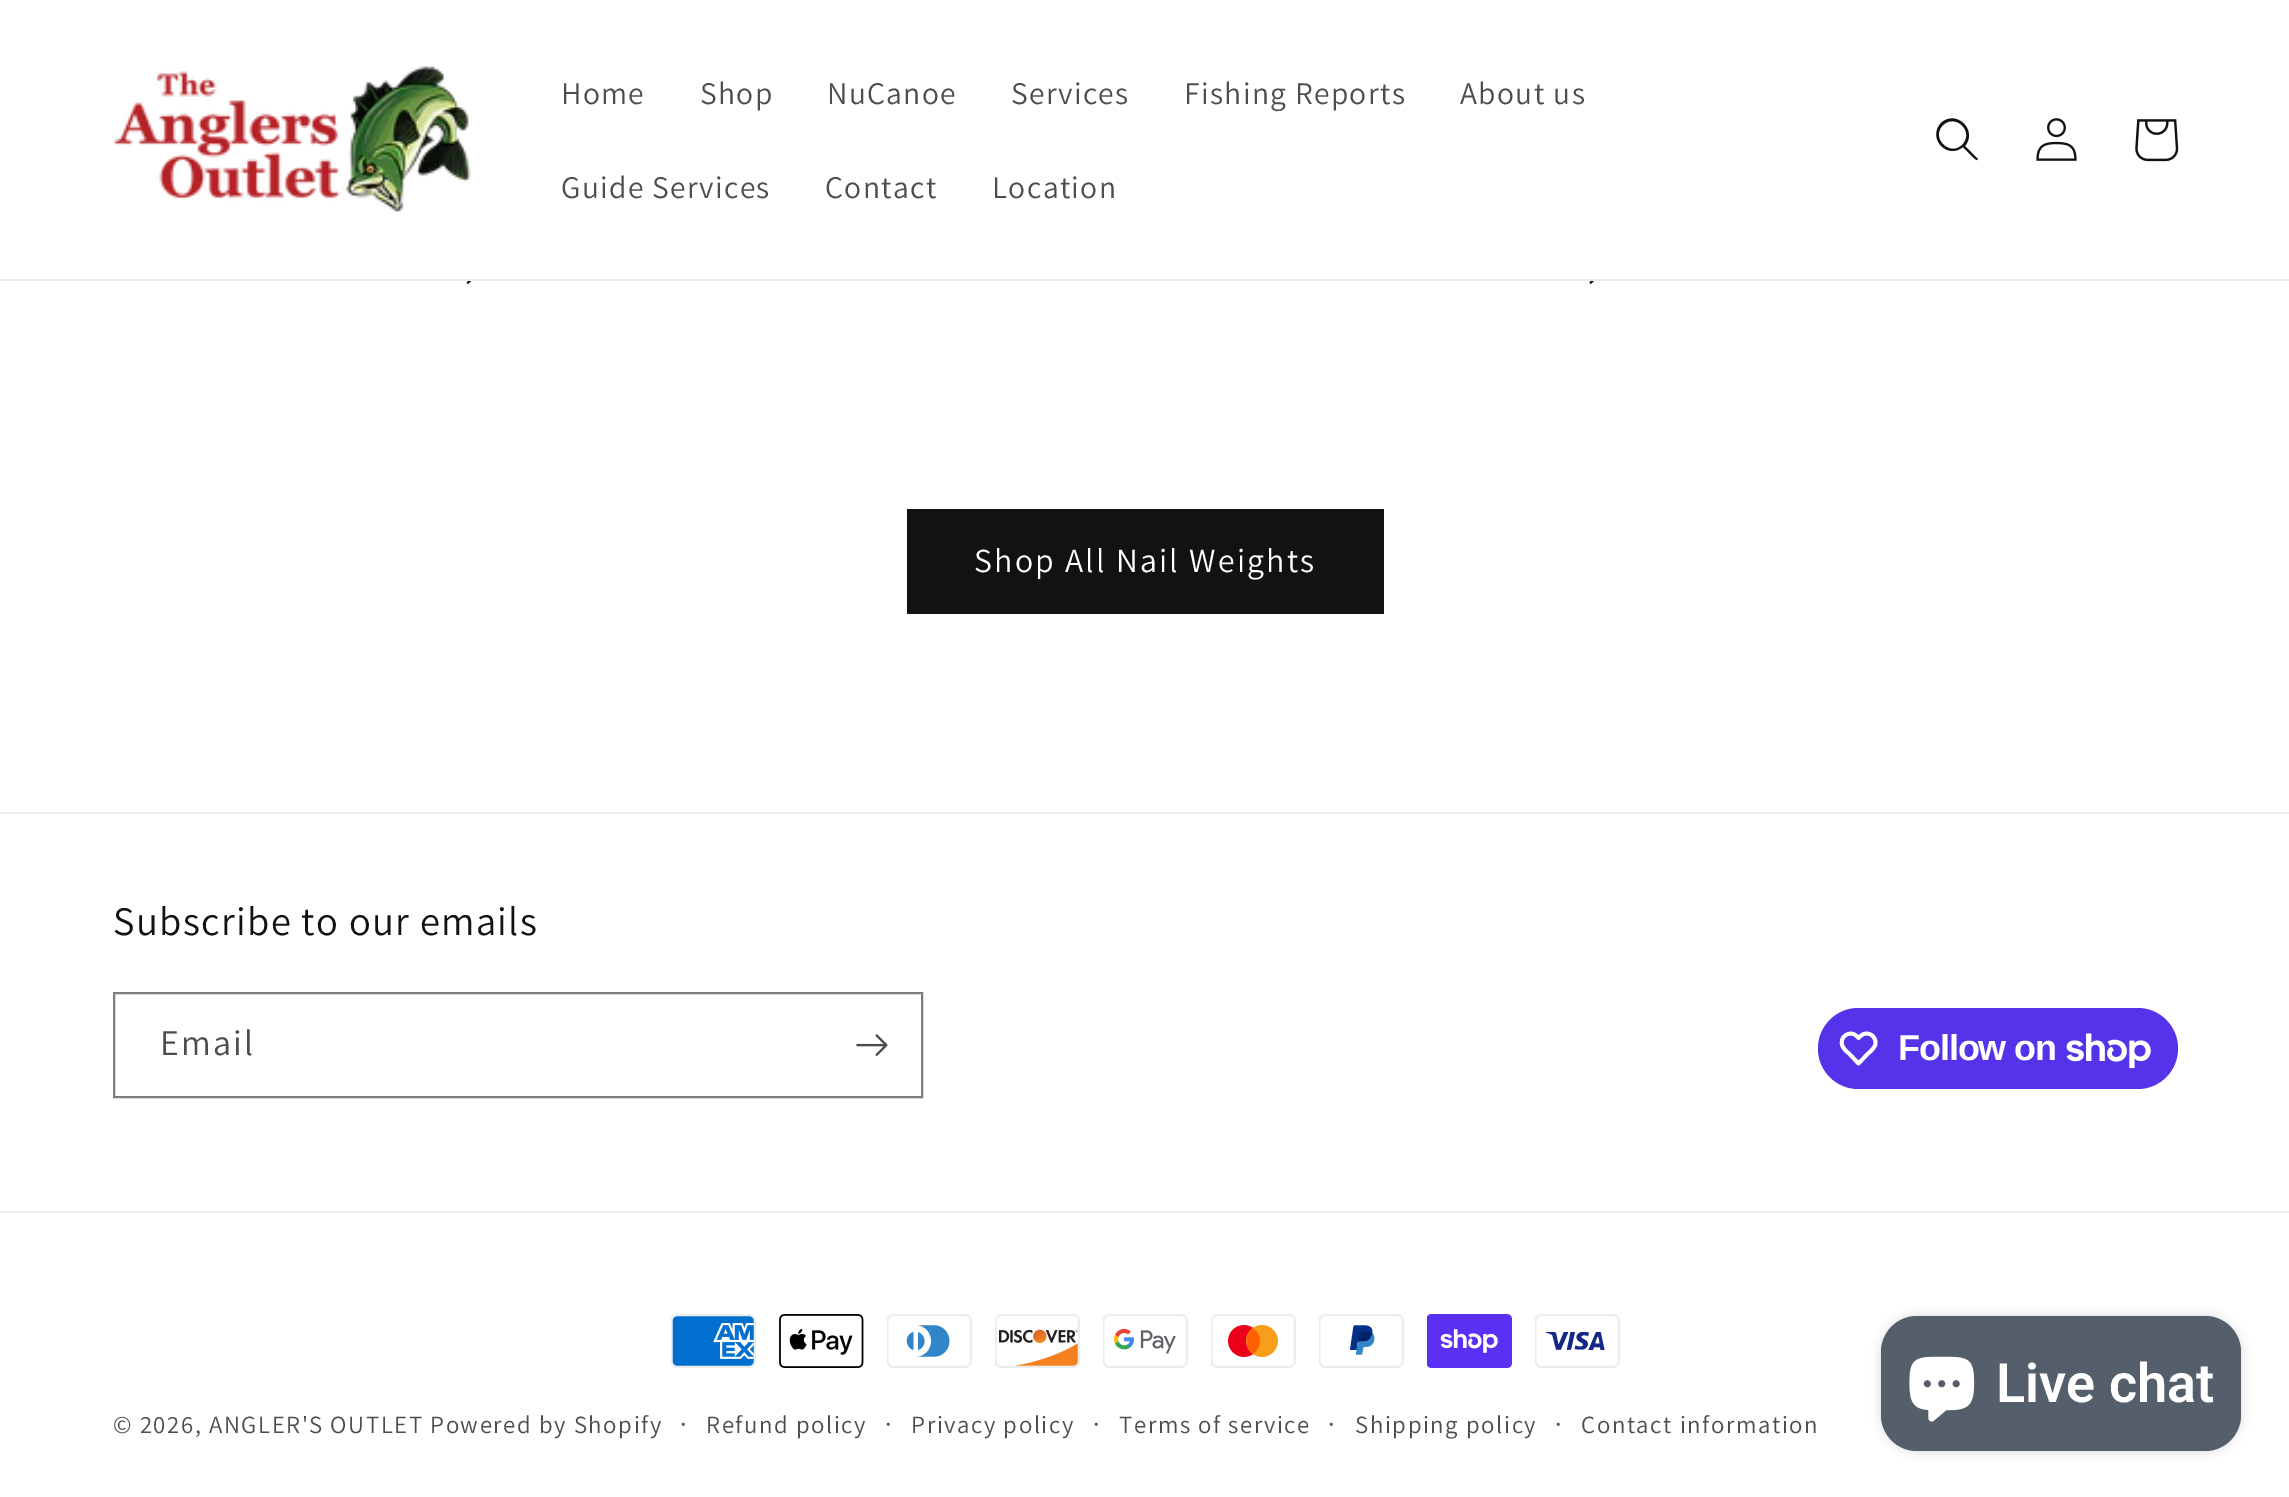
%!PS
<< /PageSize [2289 1497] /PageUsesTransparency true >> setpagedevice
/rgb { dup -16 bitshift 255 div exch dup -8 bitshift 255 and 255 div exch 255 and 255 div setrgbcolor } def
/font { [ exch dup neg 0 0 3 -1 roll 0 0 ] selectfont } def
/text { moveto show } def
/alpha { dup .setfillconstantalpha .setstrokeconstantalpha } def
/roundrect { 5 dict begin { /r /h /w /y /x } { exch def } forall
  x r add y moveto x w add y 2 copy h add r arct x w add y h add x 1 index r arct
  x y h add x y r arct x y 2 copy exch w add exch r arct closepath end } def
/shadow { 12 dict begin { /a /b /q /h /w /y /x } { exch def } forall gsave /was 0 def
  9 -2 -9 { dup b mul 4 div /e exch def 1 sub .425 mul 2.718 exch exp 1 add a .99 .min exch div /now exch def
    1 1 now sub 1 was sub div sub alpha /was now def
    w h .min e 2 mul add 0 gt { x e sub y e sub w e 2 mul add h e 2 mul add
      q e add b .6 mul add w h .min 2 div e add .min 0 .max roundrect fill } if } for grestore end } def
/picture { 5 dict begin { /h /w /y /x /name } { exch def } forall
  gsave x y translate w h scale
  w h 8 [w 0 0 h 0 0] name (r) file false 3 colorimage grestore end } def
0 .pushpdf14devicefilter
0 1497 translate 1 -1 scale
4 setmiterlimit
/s1 { /Roboto-SemiBold 54 font 16#FFFFFF rgb } def
16#FFFFFF rgb
0 0 2289 1497 rectfill
16#ECECEC rgb
0 279 2289 2 rectfill
(pic1.raw) 114 66 357 146 picture
/Assistant-Regular 31.5 font
16#4D4D4D rgb
561 104 moveto 1.35 0 (Home) ashow
700 104 moveto 1.35 0 (Shop) ashow
827 104 moveto 1.35 0 (NuCanoe) ashow
1011 104 moveto 1.35 0 (Services) ashow
1184 104 moveto 1.35 0 (Fishing Reports) ashow
1460 104 moveto 1.35 0 (About us) ashow
561 198 moveto 1.35 0 (Guide Services) ashow
825 198 moveto 1.35 0 (Contact) ashow
992 198 moveto 1.35 0 (Location) ashow
16#121212 rgb
1962 145 moveto 1950 157 1930 138 1943 125 curveto 1956 113 1975 132 1962 145 curveto closepath 1963 147 moveto 1947 160 1927 138 1941 123 curveto 1956 109 1978 130 1965 146 curveto 1978 159 lineto 1977 160 lineto 1976 161 1965 149 1963 147 curveto closepath eofill
(pic2.raw) 2036 118 41 43 picture
(pic3.raw) 2135 119 44 43 picture
(pic4.raw) 466 281 6 3 picture
(pic5.raw) 1589 281 5 3 picture
907 509 477 105 rectfill
/Assistant-Regular 33.75 font
16#FFFFFF rgb
974 572 moveto 2.25 0 (Shop All Nail Weights) ashow
16#ECECEC rgb
0 812 2289 2 rectfill
/Assistant-Regular 40.5 font
16#121212 rgb
113 935 moveto 1.35 0 (Subscribe to our emails) ashow
16#7D7D7D rgb
2 setlinewidth
114 993 808 104 rectstroke
/Assistant-Regular 36 font
16#4D4D4D rgb
160 1055 moveto 2.25 0 (Email) ashow
(pic6.raw) 856 1034 32 22 picture
16#5433EB rgb
1818 1008 360 81 40.5 roundrect fill
16#FFFFFF rgb
3.8 setlinewidth
1 setlinejoin
1856.5 1036 moveto 1858.5 1038 lineto 1860 1036.5 1861.5 1034.5 1864 1034 curveto 1871 1031.5 1877.5 1039 1875 1045.5 curveto 1873.5 1049 1870.5 1051.5 1868 1053.5 curveto 1858.5 1063.5 lineto 1849 1053.5 lineto 1846.5 1051.5 1843.5 1049 1842.5 1046 curveto 1838.5 1037 1850 1029.5 1856.5 1036 curveto closepath stroke
/LiberationSans-Bold 36 font
1898 1060 moveto -1.1 0 (Follow on) ashow
(pic7.raw) 2066 1033 85 36 picture
16#ECECEC rgb
0 1211 2289 2 rectfill
(pic8.raw) 671 1314 85 54 picture
(pic9.raw) 779 1314 85 54 picture
(pic10.raw) 887 1314 85 54 picture
(pic11.raw) 995 1314 85 54 picture
(pic12.raw) 1103 1314 85 54 picture
(pic13.raw) 1211 1314 85 54 picture
(pic14.raw) 1319 1314 85 54 picture
(pic15.raw) 1427 1314 85 54 picture
(pic16.raw) 1535 1314 85 54 picture
/Assistant-Regular 24.75 font
16#4D4D4D rgb
113 1433 moveto 1.6 0 (© 2026, ANGLER'S OUTLET) ashow
430 1433 moveto 1.6 0 (Powered by Shopify) ashow
/Assistant-Regular 27 font
680 1433 moveto 1.6 0 (·) ashow
/Assistant-Regular 24.75 font
706 1433 moveto 1.6 0 (Refund policy) ashow
/Assistant-Regular 27 font
885 1433 moveto 1.6 0 (·) ashow
/Assistant-Regular 24.75 font
911 1433 moveto 1.6 0 (Privacy policy) ashow
/Assistant-Regular 27 font
1093 1433 moveto 1.6 0 (·) ashow
/Assistant-Regular 24.75 font
1119 1433 moveto 1.6 0 (Terms of service) ashow
/Assistant-Regular 27 font
1328 1433 moveto 1.6 0 (·) ashow
/Assistant-Regular 24.75 font
1355 1433 moveto 1.6 0 (Shipping policy) ashow
/Assistant-Regular 27 font
1555 1433 moveto 1.6 0 (·) ashow
/Assistant-Regular 24.75 font
1581 1433 moveto 1.6 0 (Contact information) ashow
16#000000 rgb
1881 1316 360 135 36 5.5 0.15 shadow
16#555F6B rgb
1881 1316 360 135 36 roundrect fill
(pic17.raw) 1909 1356 66 66 picture
s1
(Live chat) 1996 1402 text
.poppdf14devicefilter showpage
